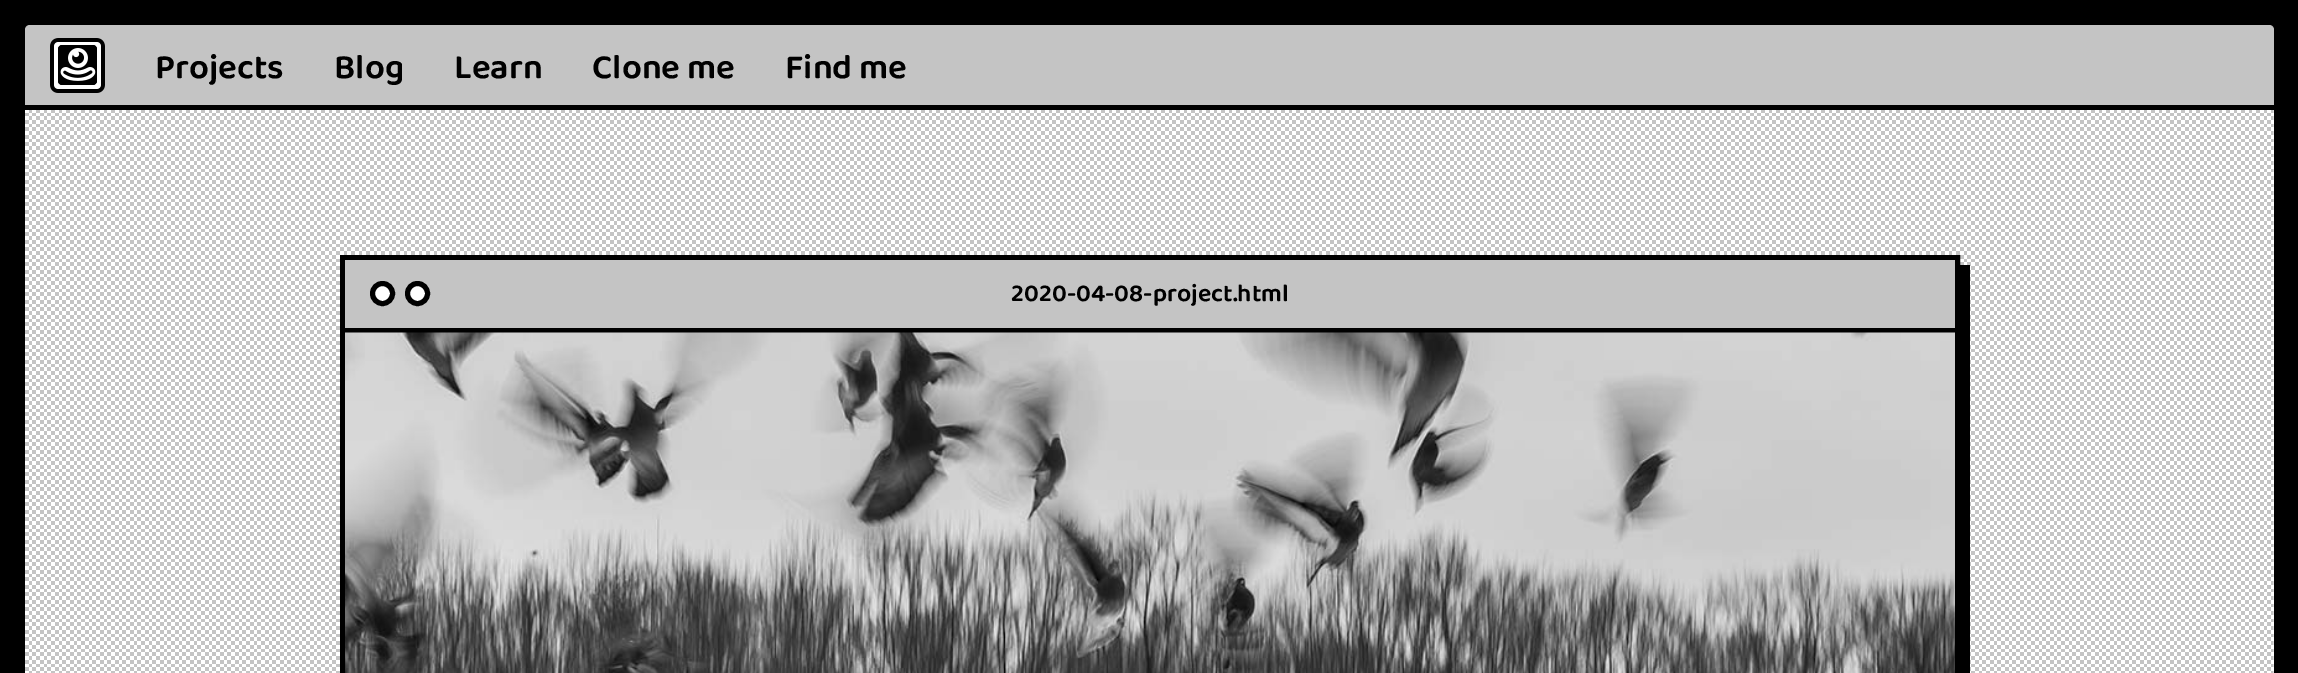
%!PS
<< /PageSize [2298 673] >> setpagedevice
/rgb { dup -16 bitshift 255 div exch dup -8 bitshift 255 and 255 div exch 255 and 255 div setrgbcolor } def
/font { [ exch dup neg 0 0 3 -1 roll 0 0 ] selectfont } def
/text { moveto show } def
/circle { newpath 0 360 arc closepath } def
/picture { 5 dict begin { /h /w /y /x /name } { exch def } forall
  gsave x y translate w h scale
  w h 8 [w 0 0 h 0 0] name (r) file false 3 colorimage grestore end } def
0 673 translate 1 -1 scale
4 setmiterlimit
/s1 { /BalooThambi2-SemiBold 35 font 16#000000 rgb } def
/s2 { /BalooThambi2-SemiBold 25 font 16#000000 rgb } def
16#000000 rgb
0 0 2298 673 rectfill
16#C4C4C4 rgb
30 25 moveto 2269 25 lineto 2272 25 2274 27 2274 30 curveto 2274 110 lineto 25 110 lineto 25 30 lineto 25 27 27 25 30 25 curveto closepath fill
16#000000 rgb
25 105 2249 5 rectfill
(pic1.raw) 50 38 55 55 picture
s1
(Projects) 155 78 text
(Blog) 334 78 text
(Learn) 454 78 text
(Clone me) 592 78 text
(Find me) 785 78 text
16#FFFFFF rgb
2273 110 1 563 rectfill
(pic2.raw) 25 110 2249 563 picture
16#000000 rgb
350 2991 moveto 350 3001 lineto 1970 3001 lineto 1970 265 lineto 1960 265 lineto 1960 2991 lineto closepath fill
5 setlinewidth
342.5 257.5 1615 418 rectstroke
16#C4C4C4 rgb
345 260 1610 68 rectfill
16#000000 rgb
345 328 1610 5 rectfill
16#FFFFFF rgb
382.5 293.5 10 circle gsave fill grestore
16#000000 rgb
stroke
16#FFFFFF rgb
417.5 293.5 10 circle gsave fill grestore
16#000000 rgb
stroke
s2
(2020-04-08-project.html) 1011 301 text
(pic3.raw) 345 332 1610 341 picture
showpage
